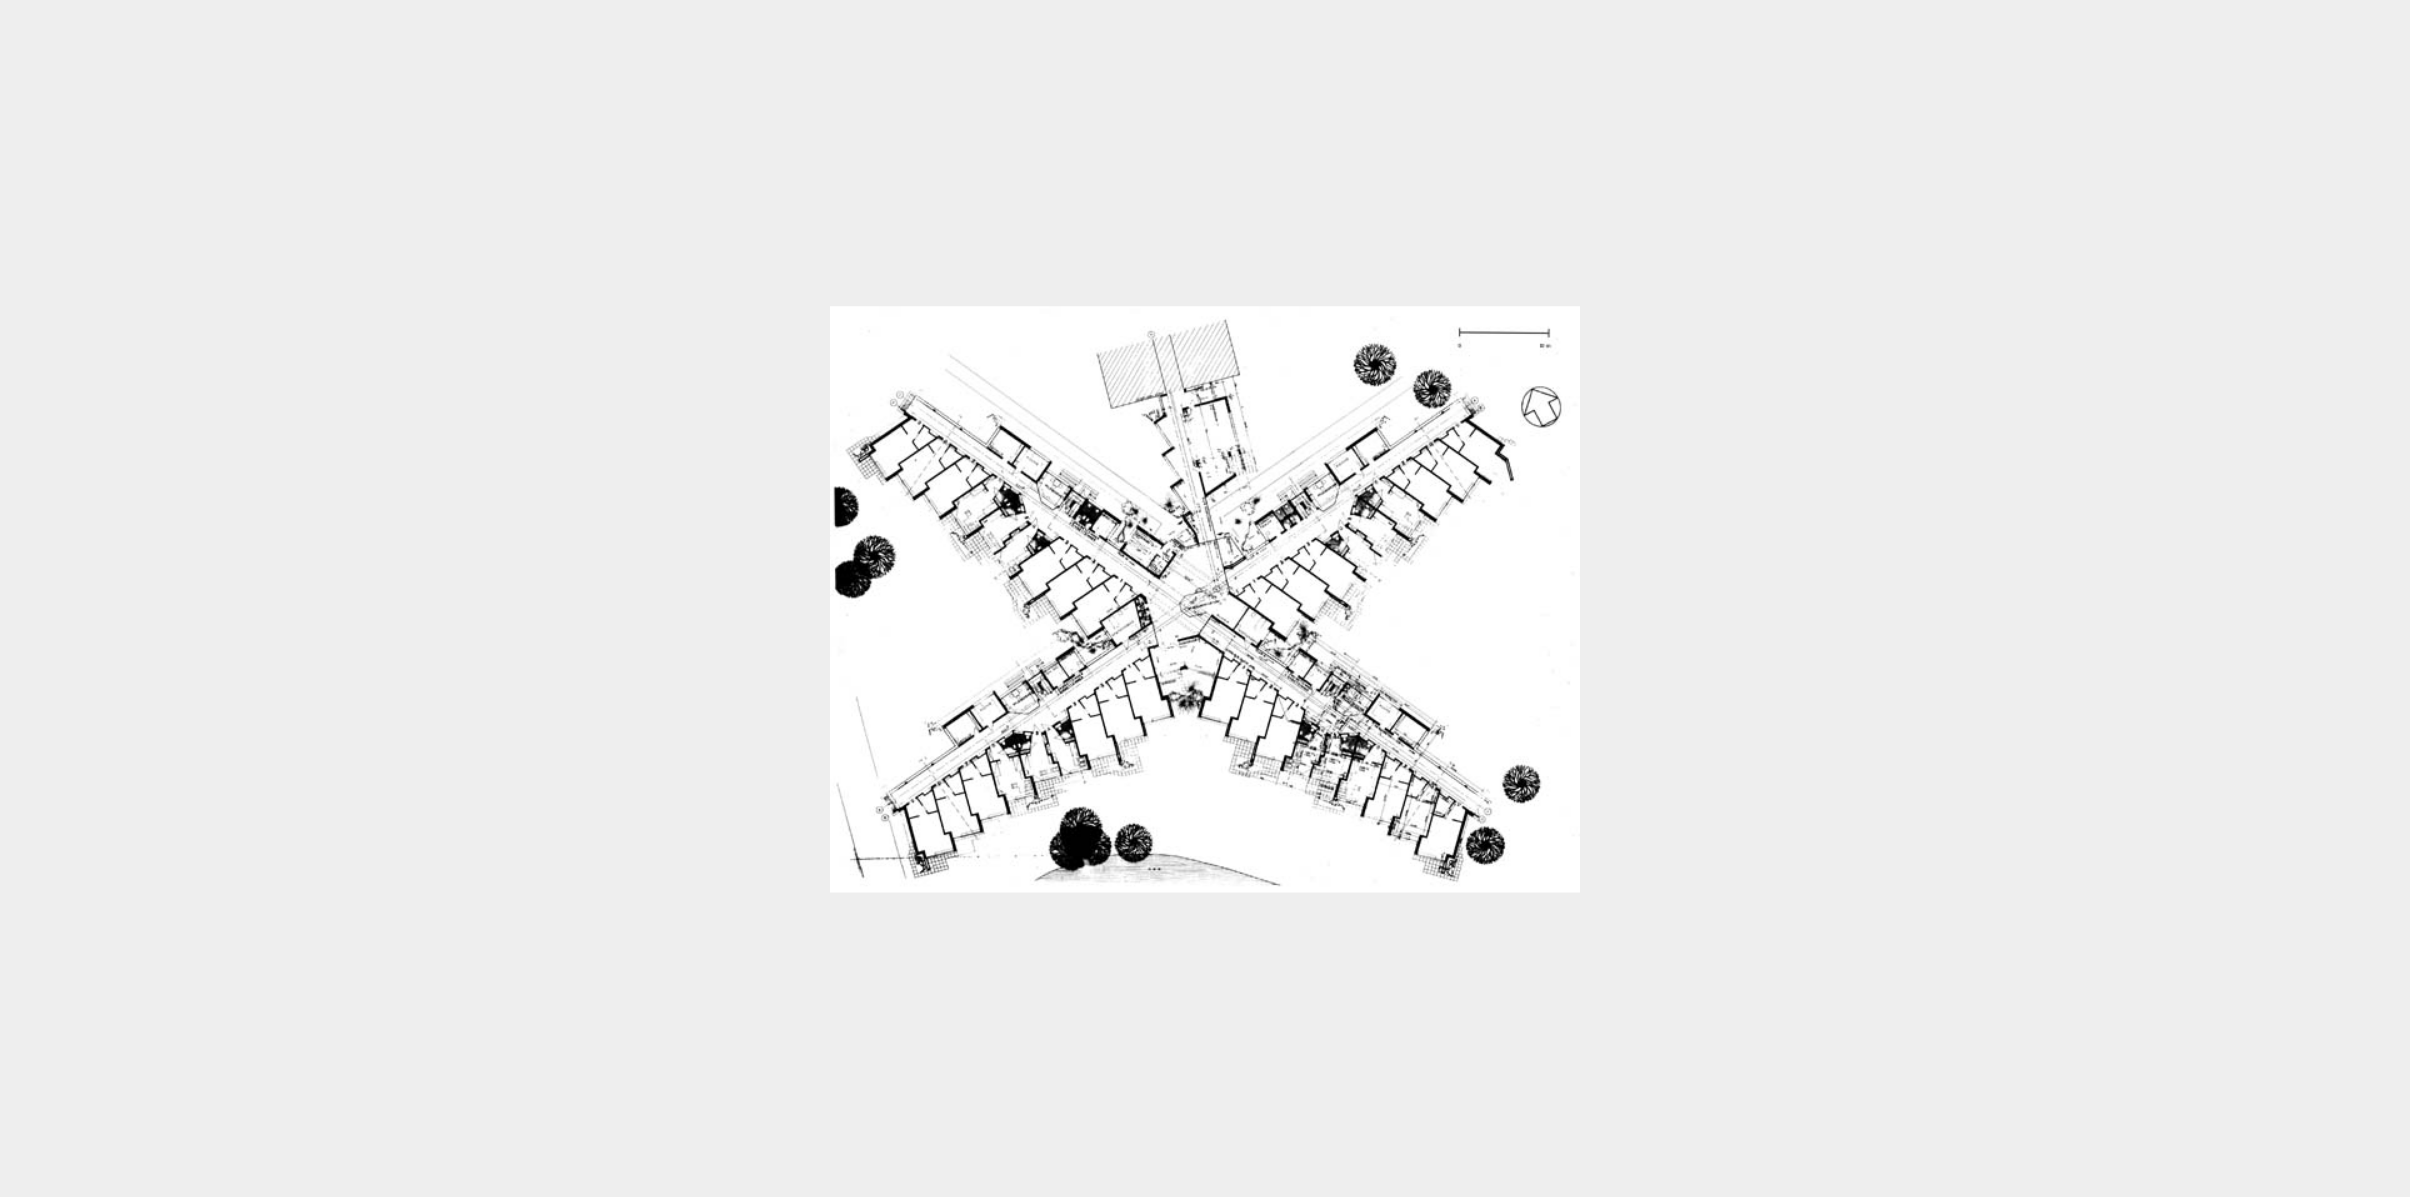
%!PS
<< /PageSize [2410 1197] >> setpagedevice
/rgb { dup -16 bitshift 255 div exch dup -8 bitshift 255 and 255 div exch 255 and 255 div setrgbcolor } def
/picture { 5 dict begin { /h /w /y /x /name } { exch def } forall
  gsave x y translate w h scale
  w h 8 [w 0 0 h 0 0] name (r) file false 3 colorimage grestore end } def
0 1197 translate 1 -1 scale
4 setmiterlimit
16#EEEEEE rgb
0 0 2410 1197 rectfill
(pic1.raw) 830 306 750 587 picture
showpage
